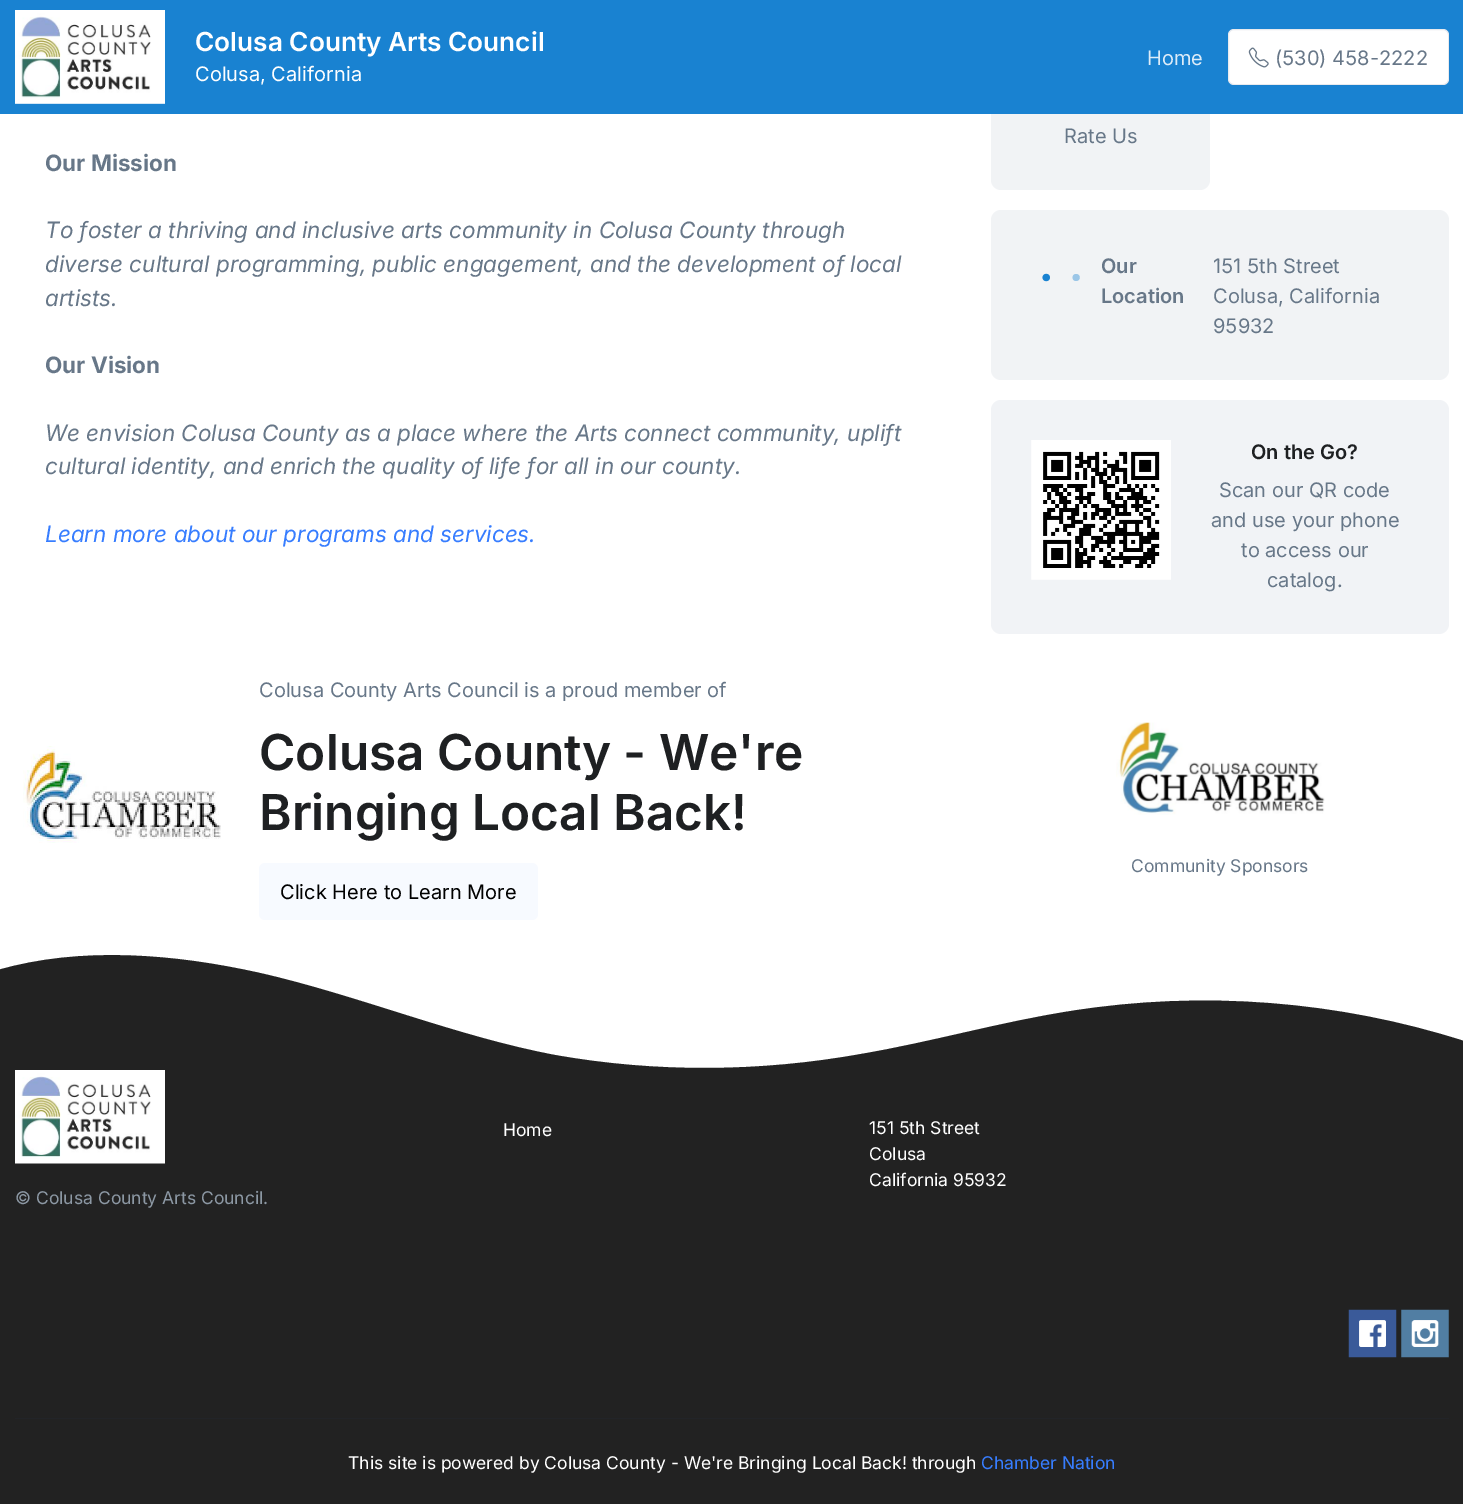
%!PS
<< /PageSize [1463 1504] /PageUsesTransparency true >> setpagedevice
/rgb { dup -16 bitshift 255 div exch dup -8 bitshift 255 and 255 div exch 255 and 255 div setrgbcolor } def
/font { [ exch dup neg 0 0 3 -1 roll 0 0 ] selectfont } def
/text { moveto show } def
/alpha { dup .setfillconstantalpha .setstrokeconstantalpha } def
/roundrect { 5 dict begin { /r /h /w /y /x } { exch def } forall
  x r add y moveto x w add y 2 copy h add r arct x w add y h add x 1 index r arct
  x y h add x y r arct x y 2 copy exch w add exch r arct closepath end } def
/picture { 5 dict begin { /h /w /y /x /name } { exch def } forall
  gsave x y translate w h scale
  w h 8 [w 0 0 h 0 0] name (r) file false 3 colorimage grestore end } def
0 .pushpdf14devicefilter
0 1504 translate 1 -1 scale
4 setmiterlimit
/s1 { /Inter-SemiBold 26.25 font 16#FFFFFF rgb } def
/s2 { /Inter-Regular 20 font 16#FFFFFF rgb } def
/s3 { /Inter-Regular 20 font 16#DDECF8 rgb } def
/s4 { /Inter-Regular 20 font 16#677788 rgb } def
/s5 { /Inter-Bold 22.5 font 16#677788 rgb } def
/s6 { /Inter-Italic 22.5 font 16#677788 rgb } def
/s7 { /Inter-Italic 22.5 font 16#377DFF rgb } def
/s8 { /Inter-SemiBold 20 font 16#677788 rgb } def
/s9 { /Inter-SemiBold 20 font 16#1E2022 rgb } def
/s10 { /Inter-SemiBold 49.5 font 16#1E2022 rgb } def
/s11 { /Inter-Regular 20 font 16#000000 rgb } def
/s12 { /Inter-Regular 17.5 font 16#677788 rgb } def
/s13 { /Inter-Regular 17.5 font 16#FFFFFF rgb } def
/s14 { /Inter-Regular 17.5 font 16#8C98A4 rgb } def
/s15 { /Inter-Regular 17.5 font 16#377DFF rgb } def
16#FFFFFF rgb
0 0 1463 1504 rectfill
16#F1F3F5 rgb
991 15 219 175 10 roundrect fill
16#1982D1 rgb
0 0 1463 114 rectfill
(pic1.raw) 15 10 150 94 picture
s1
(Colusa County Arts Council) 195 51 text
s2
(Colusa, California) 195 81 text
s3
(Home) 1147 65 text
16#FFFFFF rgb
1228 29 221 56 6 roundrect fill
0.1 alpha
16#21325B rgb
1228.5 29.5 220 55 5.5 roundrect stroke
1 alpha
(pic2.raw) 1248 47 21 21 picture
s4
(\(530\) 458-2222) 1275 65 text
s5
(Our Mission) 45 171 text
s6
(To foster a thriving and inclusive arts community in Colusa County through) 45 238 text
(diverse cultural programming, public engagement, and the development of local) 45 272 text
(artists.) 45 306 text
s5
(Our Vision) 45 373 text
s6
(We envision Colusa County as a place where the Arts connect community, uplift) 45 441 text
(cultural identity, and enrich the quality of life for all in our county.) 45 474 text
s7
(Learn more about our programs and services.) 45 542 text
s4
(Rate Us) 1064 143 text
16#F1F3F5 rgb
991 210 458 170 10 roundrect fill
(pic3.raw) 1042 273 8 9 picture
0.4 alpha
16#1982D1 rgb
1046 274 moveto 1041.5 274 1041.5 281 1046 281 curveto 1051 281 1051 274 1046 274 curveto closepath 1076 274 moveto 1071.5 274 1071.5 281 1076 281 curveto 1081 281 1081 274 1076 274 curveto closepath fill
1 alpha
s8
(Our) 1101 273 text
(Location) 1101 303 text
s4
(151 5th Street) 1213 273 text
(Colusa, California) 1213 303 text
(95932) 1213 333 text
16#F1F3F6 rgb
991 400 458 234 10 roundrect fill
(pic4.raw) 1031 440 140 140 picture
s9
(On the Go?) 1251 459 text
s4
(Scan our QR code) 1219 497 text
(and use your phone) 1211 527 text
(to access our) 1241 557 text
(catalog.) 1267 587 text
(pic5.raw) 23 746 198 97 picture
(Colusa County Arts Council is a proud member of) 259 697 text
s10
(Colusa County - We're) 259 770 text
(Bringing Local Back!) 259 830 text
16#F7FAFF rgb
259 863 279 57 6 roundrect fill
s11
(Click Here to Learn More) 280 899 text
(pic6.raw) 1116 722 209 93 picture
s12
(Community Sponsors) 1131 872 text
16#222222 rgb
1071 1011 moveto 1000 1022 932 1042 861 1054 curveto 761 1072 656 1073 555 1055 curveto 458 1037 357 995 260 973 curveto 175 954 81 946 -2 970 curveto -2 1070 lineto 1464 1070 lineto 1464 1041 lineto 1339 1001 1203 990 1071 1011 curveto closepath fill
0 1070 1463 434 rectfill
s13
(Home) 503 1136 text
(151 5th Street) 869 1134 text
(Colusa) 869 1160 text
(California 95932) 869 1186 text
(pic7.raw) 15 1070 150 94 picture
s14
(© Colusa County Arts Council.) 15 1204 text
(pic8.raw) 1348 1309 49 49 picture
(pic9.raw) 1401 1309 48 49 picture
16#222428 rgb
15 1418 1434 1 rectfill
s13
(This site is powered by Colusa County - We're Bringing Local Back! through) 348 1469 text
s15
(Chamber Nation) 981 1469 text
.poppdf14devicefilter showpage
